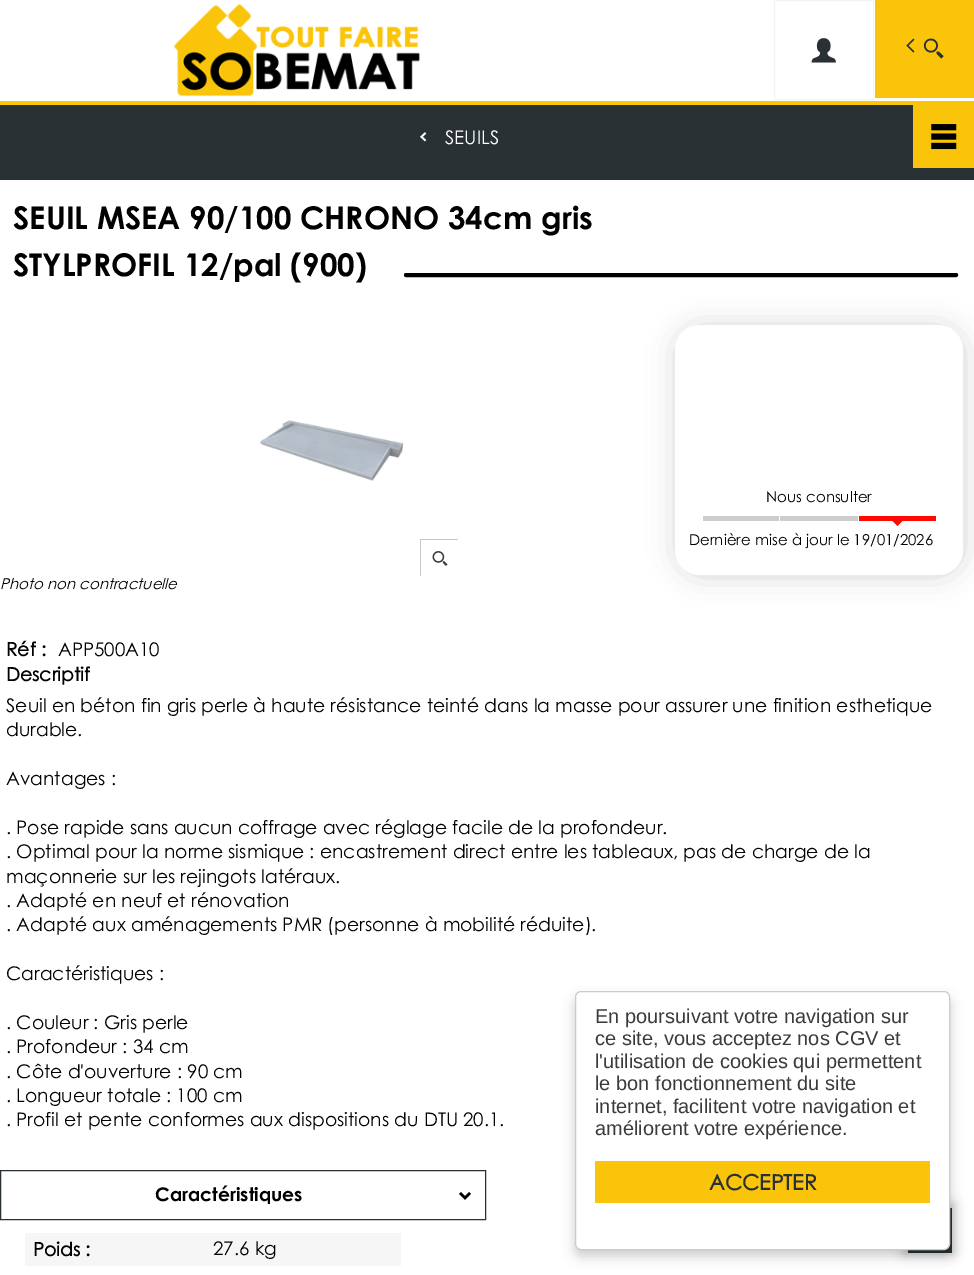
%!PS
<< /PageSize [974 1275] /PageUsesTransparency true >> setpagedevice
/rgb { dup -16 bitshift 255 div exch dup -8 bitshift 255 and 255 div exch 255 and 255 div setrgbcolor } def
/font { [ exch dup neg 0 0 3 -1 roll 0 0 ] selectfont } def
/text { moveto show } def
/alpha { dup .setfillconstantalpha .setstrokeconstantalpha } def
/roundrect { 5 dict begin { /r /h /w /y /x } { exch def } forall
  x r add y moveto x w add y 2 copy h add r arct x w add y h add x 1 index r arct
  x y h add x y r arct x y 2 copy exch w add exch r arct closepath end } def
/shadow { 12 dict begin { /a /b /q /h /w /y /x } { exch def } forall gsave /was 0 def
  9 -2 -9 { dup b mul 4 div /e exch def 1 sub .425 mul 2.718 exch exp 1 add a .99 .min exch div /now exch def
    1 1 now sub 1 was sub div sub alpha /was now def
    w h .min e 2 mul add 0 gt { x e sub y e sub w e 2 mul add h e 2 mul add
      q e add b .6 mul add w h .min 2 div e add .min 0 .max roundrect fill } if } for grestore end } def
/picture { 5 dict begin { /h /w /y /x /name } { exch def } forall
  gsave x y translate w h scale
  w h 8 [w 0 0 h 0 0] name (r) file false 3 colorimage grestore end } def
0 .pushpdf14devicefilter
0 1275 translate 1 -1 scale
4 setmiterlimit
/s1 { /CenturyGothic-Regular 18.75 font 16#FFFFFF rgb } def
/s2 { /CenturyGothic-Bold 31.25 font 16#000000 rgb } def
/s3 { /CenturyGothic-Regular 15 font 16#000000 rgb } def
/s4 { /CenturyGothic-Italic 15 font 16#000000 rgb } def
/s5 { /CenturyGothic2-Bold 18.75 font 16#000000 rgb } def
/s6 { /CenturyGothic-Regular 18.75 font 16#000000 rgb } def
/s7 { /CenturyGothic-Bold 18.75 font 16#000000 rgb } def
/s8 { /LiberationSans-Regular 20 font 16#3B3B3B rgb } def
/s9 { /CenturyGothic2-Bold 21.25 font 16#293134 rgb } def
16#FFFFFF rgb
0 0 974 1275 rectfill
(pic1.raw) 174 4 246 93 picture
16#F3F3F3 rgb
774.5 0.5 99 99 rectstroke
(pic2.raw) 811 38 25 25 picture
16#F9C40A rgb
875 0 99 98 rectfill
(pic3.raw) 906 38 38 21 picture
16#293134 rgb
0 105 974 75 rectfill
16#F9C40A rgb
0 101 974 4 rectfill
(pic4.raw) 420 132 7 10 picture
s1
(SEUILS) 445 144 text
16#F9C40A rgb
913 105 61 63 rectfill
(pic5.raw) 931 124 26 26 picture
s2
(SEUIL MSEA 90/100 CHRONO 34cm gris) 13 229 text
(STYLPROFIL 12/pal \(900\)) 13 276 text
404.5 273.5 553 3 1.5 roundrect gsave fill grestore
stroke
676 326 288 250 25 14.5 0.16 shadow
16#FFFFFF rgb
675 325 288 250 25 roundrect fill
s3
(Nous consulter) 766 502 text
16#CDCDCD rgb
703 516 76 5 rectfill
780 516 78 5 rectfill
16#FF0A03 rgb
859 516 77 5 rectfill
892.5 521 moveto 902.5 521 lineto 897.5 526 lineto closepath fill
s3
(Dernière mise à jour le 19/01/2026) 689 545 text
(pic6.raw) 260 420 144 61 picture
16#C7C7C7 rgb
420 539 38 1 rectfill
420 539 1 37 rectfill
(pic7.raw) 432 551 16 15 picture
s4
(Photo non contractuelle) 0 589 text
s5
(Réf :) 6 656 text
s6
(APP500A10) 58 656 text
s5
(Descriptif) 6 681 text
s6
(Seuil en béton fin gris perle à haute résistance teinté dans la masse pour assurer une finition esthetique) 6 712 text
(durable.) 6 736 text
(Avantages :) 6 785 text
(. Pose rapide sans aucun coffrage avec réglage facile de la profondeur.) 6 834 text
(. Optimal pour la norme sismique : encastrement direct entre les tableaux, pas de charge de la) 6 858 text
(maçonnerie sur les rejingots latéraux.) 6 883 text
(. Adapté en neuf et rénovation) 6 907 text
(. Adapté aux aménagements PMR \(personne à mobilité réduite\).) 6 931 text
(Caractéristiques :) 6 980 text
(. Couleur : Gris perle) 6 1029 text
(. Profondeur : 34 cm) 6 1053 text
(. Côte d'ouverture : 90 cm) 6 1078 text
(. Longueur totale : 100 cm) 6 1102 text
(. Profil et pente conformes aux dispositions du DTU 20.1.) 6 1126 text
16#293134 rgb
0.5 1170.5 485 49 rectstroke
gsave
14 1185 431 19 rectclip
s7
(Caractéristiques) 155 1201 text
grestore
(pic8.raw) 459 1192 12 8 picture
16#F6F6F6 rgb
25 1233 376 1 rectfill
400 1233 1 33 rectfill
25 1265 376 1 rectfill
25 1233 1 33 rectfill
26 1234 374 31 rectfill
s5
(Poids :) 33 1256 text
s6
(27.6 kg) 213 1255 text
16#7F7F7F rgb
904 1204 50 50 0 6 0.5 shadow
16#293134 rgb
927 1228 moveto 927 1244 lineto 933 1244 lineto 933 1228 lineto 940 1228 lineto 930 1216 lineto 920 1228 lineto closepath 908 1208 moveto 952 1208 lineto 952 1253 lineto 908 1253 lineto closepath fill
16#000000 rgb
575 998 375 258 6 6 0.2 shadow
16#FFFFFF rgb
575.5 991.5 374 258 5.5 roundrect gsave fill grestore
16#CCCCCC rgb
stroke
s8
(En poursuivant votre navigation sur) 595 1023 text
(ce site, vous acceptez nos CGV et) 595 1045 text
(l'utilisation de cookies qui permettent) 595 1068 text
(le bon fonctionnement du site) 595 1090 text
(internet, facilitent votre navigation et) 595 1113 text
(améliorent votre expérience.) 595 1135 text
16#F9C40A rgb
595 1161 335 42 rectfill
s9
(ACCEPTER) 709 1190 text
.poppdf14devicefilter showpage
